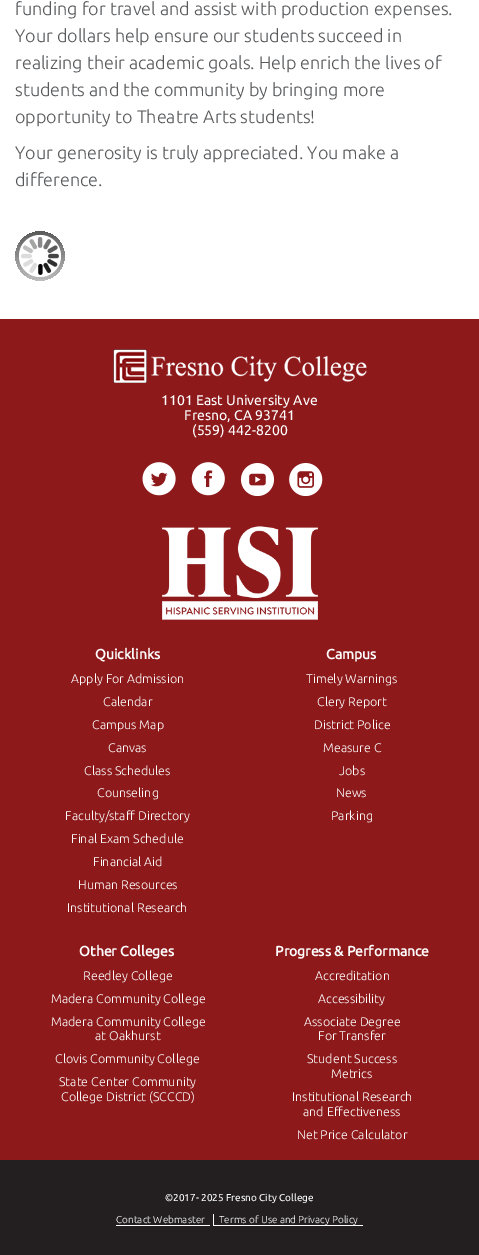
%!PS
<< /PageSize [479 1255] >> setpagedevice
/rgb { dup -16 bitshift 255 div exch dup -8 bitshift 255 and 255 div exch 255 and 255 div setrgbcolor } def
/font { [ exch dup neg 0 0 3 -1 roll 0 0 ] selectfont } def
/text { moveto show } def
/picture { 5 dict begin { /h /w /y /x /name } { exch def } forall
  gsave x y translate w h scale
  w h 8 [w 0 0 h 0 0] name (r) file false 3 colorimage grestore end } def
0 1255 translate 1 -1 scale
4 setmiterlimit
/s1 { /Ubuntu-Light 18 font 16#58595B rgb } def
/s2 { /Ubuntu-Regular 14 font 16#FFFFFF rgb } def
/s3 { /Ubuntu-Bold 14 font 16#FFFFFF rgb } def
/s4 { /Ubuntu-Light 12.5 font 16#FFFFFF rgb } def
/s5 { /Ubuntu-Regular 10 font 16#FFFFFF rgb } def
/s6 { /Ubuntu-Light 10 font 16#FFFFFF rgb } def
16#FFFFFF rgb
0 0 479 1255 rectfill
s1
(funding for travel and assist with production expenses.) 15 15 text
(Your dollars help ensure our students succeed in) 15 42 text
(realizing their academic goals. Help enrich the lives of) 15 69 text
(students and the community by bringing more) 15 96 text
(opportunity to Theatre Arts students!) 15 123 text
(Your generosity is truly appreciated. You make a) 15 159 text
(difference.) 15 186 text
(pic1.raw) 15 231 50 50 picture
16#8D191B rgb
0 319 479 841 rectfill
(pic2.raw) 113 349 254 34 picture
s2
(1101 East University Ave) 161 405 text
(Fresno, CA 93741) 184 420 text
(\(559\) 442-8200) 192 435 text
(pic3.raw) 142 462 34 34 picture
(pic4.raw) 191 462 34 34 picture
(pic5.raw) 240 463 34 33 picture
(pic6.raw) 289 463 34 33 picture
(pic7.raw) 162 526 156 94 picture
s3
(Quicklinks) 95 659 text
s4
(Apply For Admission) 71 683 text
(Calendar) 103 706 text
(Campus Map) 92 729 text
(Canvas) 108 752 text
(Class Schedules) 84 775 text
(Counseling) 97 797 text
(Faculty/staff Directory) 65 820 text
(Final Exam Schedule) 71 843 text
(Financial Aid) 93 866 text
(Human Resources) 78 889 text
(Institutional Research) 67 912 text
s3
(Campus) 326 659 text
s4
(Timely Warnings) 306 683 text
(Clery Report) 317 706 text
(District Police) 314 729 text
(Measure C) 323 752 text
(Jobs) 339 775 text
(News) 336 797 text
(Parking) 331 820 text
s3
(Other Colleges) 79 956 text
s4
(Reedley College) 83 980 text
(Madera Community College) 51 1003 text
(Madera Community College) 51 1026 text
(at Oakhurst) 95 1040 text
(Clovis Community College) 55 1063 text
(State Center Community) 59 1086 text
(College District \(SCCCD\)) 61 1101 text
s3
(Progress & Performance) 275 956 text
s4
(Accreditation) 315 980 text
(Accessibility) 318 1003 text
(Associate Degree) 304 1026 text
(For Transfer) 318 1040 text
(Student Success) 307 1063 text
(Metrics) 331 1078 text
(Institutional Research) 292 1101 text
(and Effectiveness) 303 1116 text
(Net Price Calculator) 297 1139 text
16#231F20 rgb
0 1160 479 95 rectfill
s5
(©2017- 2025 Fresno City College) 165 1201 text
s6
(Contact Webmaster) 116 1223 text
116 1225 94 1 rectfill
(Terms of Use and Privacy Policy) 219 1223 text
213 1225 150 1 rectfill
213 1214 1 12 rectfill
showpage
